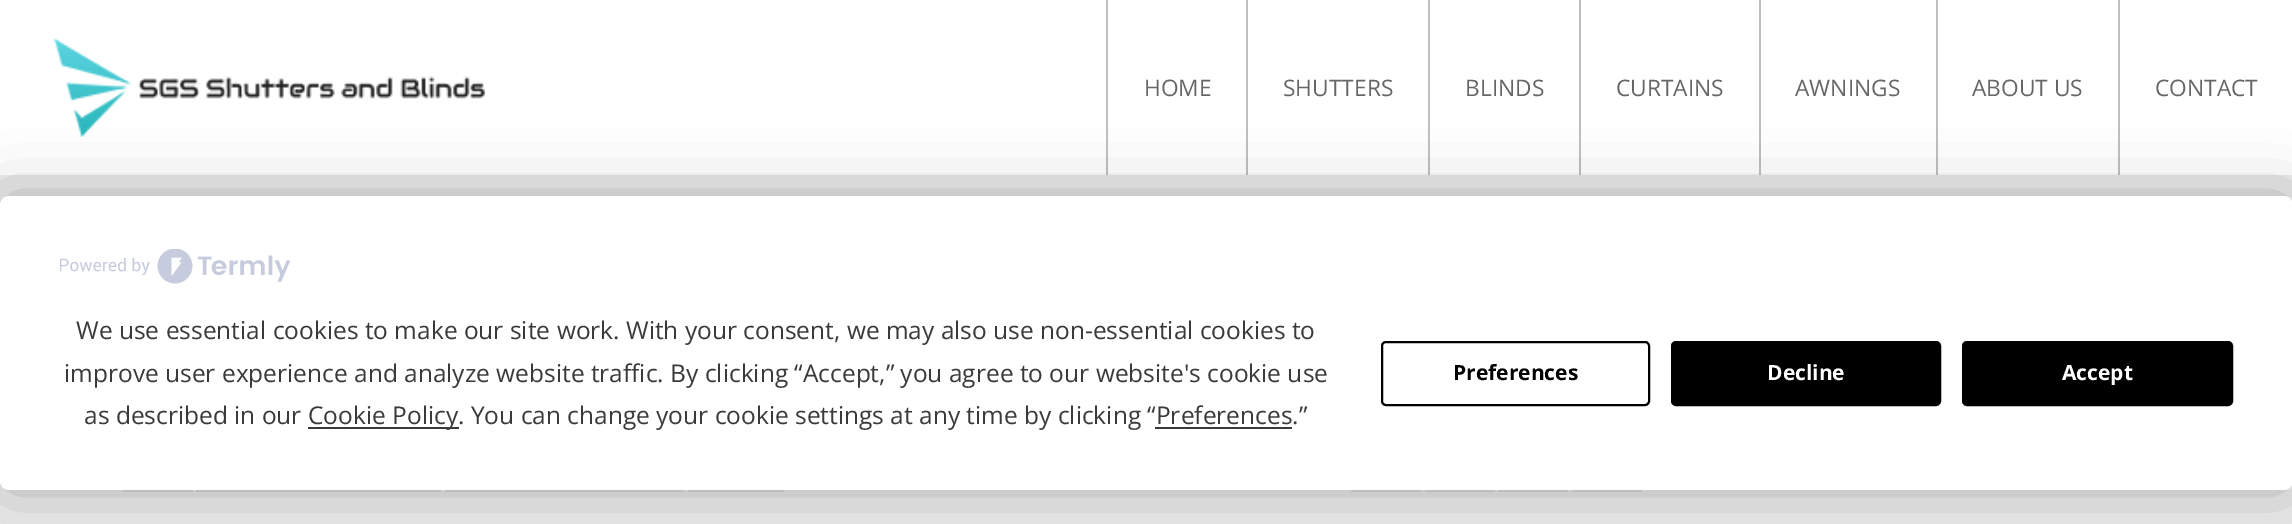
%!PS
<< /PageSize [2292 524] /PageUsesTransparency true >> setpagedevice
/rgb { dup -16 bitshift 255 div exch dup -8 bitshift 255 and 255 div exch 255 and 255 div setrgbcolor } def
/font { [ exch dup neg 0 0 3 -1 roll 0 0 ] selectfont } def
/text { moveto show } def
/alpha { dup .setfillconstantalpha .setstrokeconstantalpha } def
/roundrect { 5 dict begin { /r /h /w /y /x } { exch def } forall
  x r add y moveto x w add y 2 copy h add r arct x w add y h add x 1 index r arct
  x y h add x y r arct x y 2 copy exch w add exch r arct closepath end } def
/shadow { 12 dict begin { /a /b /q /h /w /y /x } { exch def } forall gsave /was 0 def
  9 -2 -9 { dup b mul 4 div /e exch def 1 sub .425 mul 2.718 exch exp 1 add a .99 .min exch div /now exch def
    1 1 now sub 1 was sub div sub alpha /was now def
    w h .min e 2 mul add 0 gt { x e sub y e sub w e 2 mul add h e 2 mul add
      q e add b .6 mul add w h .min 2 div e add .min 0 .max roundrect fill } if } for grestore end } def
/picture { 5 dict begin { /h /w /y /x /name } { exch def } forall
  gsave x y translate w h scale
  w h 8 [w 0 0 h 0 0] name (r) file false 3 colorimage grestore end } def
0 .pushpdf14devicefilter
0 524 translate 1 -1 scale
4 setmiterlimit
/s1 { /OpenSans-Regular 22.75 font 16#666666 rgb } def
/s2 { /OpenSans-Regular 24.5 font 16#3A3A3A rgb } def
/s3 { /OpenSans-Bold 21 font 16#000000 rgb } def
/s4 { /OpenSans-Bold 21 font 16#FFFFFF rgb } def
16#ECECEC rgb
0 0 2292 524 rectfill
16#FFFFFF rgb
0 0 2292 175 rectfill
(pic1.raw) 54 38 431 99 picture
16#BFBFBF rgb
1106 0 2 175 rectfill
s1
(HOME) 1144 96 text
16#BFBFBF rgb
1246 0 2 175 rectfill
s1
(SHUTTERS) 1283 96 text
16#BFBFBF rgb
1428 0 2 175 rectfill
s1
(BLINDS) 1465 96 text
16#BFBFBF rgb
1579 0 2 175 rectfill
s1
(CURTAINS) 1616 96 text
16#BFBFBF rgb
1759 0 2 175 rectfill
s1
(AWNINGS) 1795 96 text
16#BFBFBF rgb
1936 0 2 175 rectfill
s1
(ABOUT US) 1972 96 text
16#BFBFBF rgb
2118 0 2 175 rectfill
s1
(CONTACT) 2155 96 text
16#DADADA rgb
123 490 70 2 rectfill
196 490 245 2 rectfill
445 490 239 2 rectfill
688 490 96 2 rectfill
1351 490 70 2 rectfill
1425 490 70 2 rectfill
1498 490 70 2 rectfill
1572 490 70 2 rectfill
16#000000 rgb
0 196 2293 294 9 30.5 0.25 shadow
16#FFFFFF rgb
0 196 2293 294 9 roundrect fill
(pic2.raw) 60 249 231 35 picture
s2
(We use essential cookies to make our site work. With your consent, we may also use non-essential cookies to) 76 339 text
(improve user experience and analyze website traffic. By clicking “Accept,” you agree to our website's cookie use) 64 382 text
(as described in our) 84 424 text
308 427 151 2 rectfill
(Cookie Policy. You can change your cookie settings at any time by clicking “Preferences.”) 308 424 text
1155 427 137 2 rectfill
16#000000 rgb
2 setlinewidth
1382 342 267 63 4 roundrect stroke
s3
(Preferences) 1453 380 text
1672 342 268 63 4 roundrect gsave fill grestore
stroke
s4
(Decline) 1767 380 text
16#000000 rgb
1963 342 269 63 4 roundrect gsave fill grestore
stroke
s4
(Accept) 2062 380 text
.poppdf14devicefilter showpage
